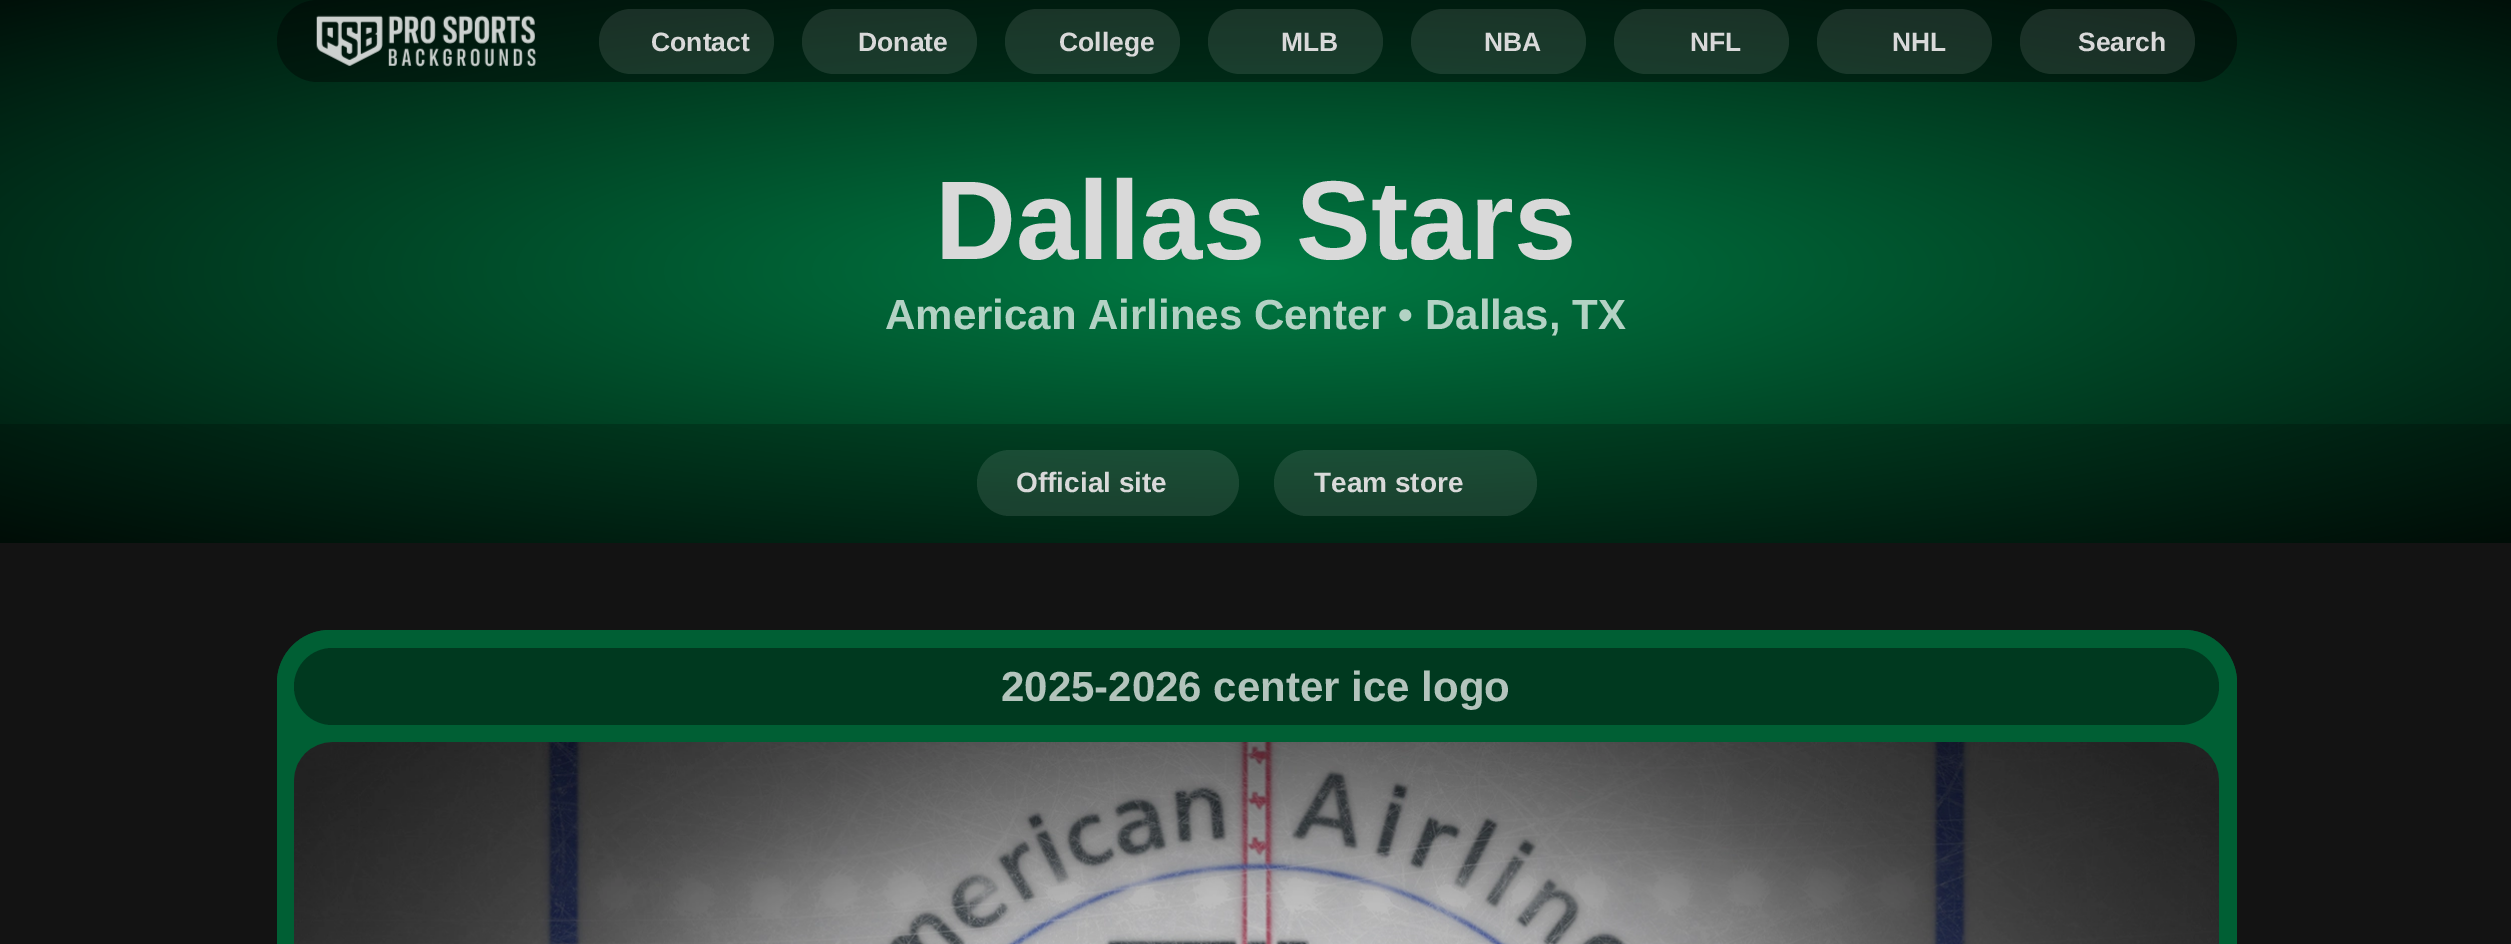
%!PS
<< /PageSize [2511 944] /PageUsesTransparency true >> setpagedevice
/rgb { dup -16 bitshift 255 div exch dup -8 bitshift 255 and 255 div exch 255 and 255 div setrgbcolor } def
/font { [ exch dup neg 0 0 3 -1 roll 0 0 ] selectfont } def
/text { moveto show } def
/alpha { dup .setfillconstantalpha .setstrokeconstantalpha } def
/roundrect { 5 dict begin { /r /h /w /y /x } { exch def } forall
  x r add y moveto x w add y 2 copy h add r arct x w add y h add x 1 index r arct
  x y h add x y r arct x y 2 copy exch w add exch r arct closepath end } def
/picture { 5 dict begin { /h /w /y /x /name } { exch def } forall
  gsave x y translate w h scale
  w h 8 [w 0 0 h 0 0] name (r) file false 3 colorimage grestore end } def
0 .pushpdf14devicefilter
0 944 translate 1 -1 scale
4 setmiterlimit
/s1 { /LiberationSans-Bold 26.5 font 16#D9D9D9 rgb } def
/s2 { /LiberationSans-Bold 112 font 16#D9D9D9 rgb } def
/s3 { /LiberationSans-Bold 42 font 16#B3D2C4 rgb } def
/s4 { /LiberationSans-Bold 28 font 16#D9D9D9 rgb } def
/s5 { /LiberationSans-Bold 42 font 16#B3C4BC rgb } def
16#131313 rgb
0 0 2511 944 rectfill
gsave 0 0 moveto 2511 0 lineto 2511 424 lineto 0 424 lineto closepath clip newpath 1256 271 translate 1776 384 scale
<< /ShadingType 3 /ColorSpace /DeviceRGB /Coords [0 0 0 0 0 1] /Extend [true true] /Function << /FunctionType 2 /Domain [0 1] /C0 [0 0.486 0.267] /C1 [0 0.063 0.035] /N 1 >> >> shfill grestore
0.4 alpha
16#000000 rgb
277 0 1960 82 41 roundrect fill
1 alpha
(pic1.raw) 316 15 220 52 picture
0.1 alpha
16#FFFFFF rgb
599 9 175 65 32.5 roundrect fill
1 alpha
s1
(Contact) 651 51 text
0.1 alpha
16#FFFFFF rgb
802 9 175 65 32.5 roundrect fill
1 alpha
s1
(Donate) 858 51 text
0.1 alpha
16#FFFFFF rgb
1005 9 175 65 32.5 roundrect fill
1 alpha
s1
(College) 1059 51 text
0.1 alpha
16#FFFFFF rgb
1208 9 175 65 32.5 roundrect fill
1 alpha
s1
(MLB) 1281 51 text
0.1 alpha
16#FFFFFF rgb
1411 9 175 65 32.5 roundrect fill
1 alpha
s1
(NBA) 1484 51 text
0.1 alpha
16#FFFFFF rgb
1614 9 175 65 32.5 roundrect fill
1 alpha
s1
(NFL) 1690 51 text
0.1 alpha
16#FFFFFF rgb
1817 9 175 65 32.5 roundrect fill
1 alpha
s1
(NHL) 1892 51 text
0.1 alpha
16#FFFFFF rgb
2020 9 175 65 32.5 roundrect fill
1 alpha
s1
(Search) 2078 51 text
gsave 0 424 moveto 2511 424 lineto 2511 543 lineto 0 543 lineto closepath clip newpath 1256 271 translate 1776 384 scale
<< /ShadingType 3 /ColorSpace /DeviceRGB /Coords [0 0 0 0 0 1] /Extend [true true] /Function << /FunctionType 2 /Domain [0 1] /C0 [0 0.388 0.212] /C1 [0 0.051 0.027] /N 1 >> >> shfill grestore
s2
(Dallas Stars) 935 259 text
s3
(American Airlines Center • Dallas, TX) 885 329 text
0.1 alpha
16#FFFFFF rgb
977 450 262 66 33 roundrect fill
1 alpha
s4
(Official site) 1016 492 text
0.1 alpha
16#FFFFFF rgb
1274 450 263 66 33 roundrect fill
1 alpha
s4
(Team store) 1314 492 text
16#009E56 rgb
277 630 1960 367 53 roundrect fill
0.4 alpha
16#000000 rgb
277 630 1960 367 53 roundrect fill
1 alpha
16#00391F rgb
294 648 1925 77 38.5 roundrect fill
s5
(2025-2026 center ice logo) 1001 701 text
(pic2.raw) 294 742 1925 202 picture
.poppdf14devicefilter showpage
